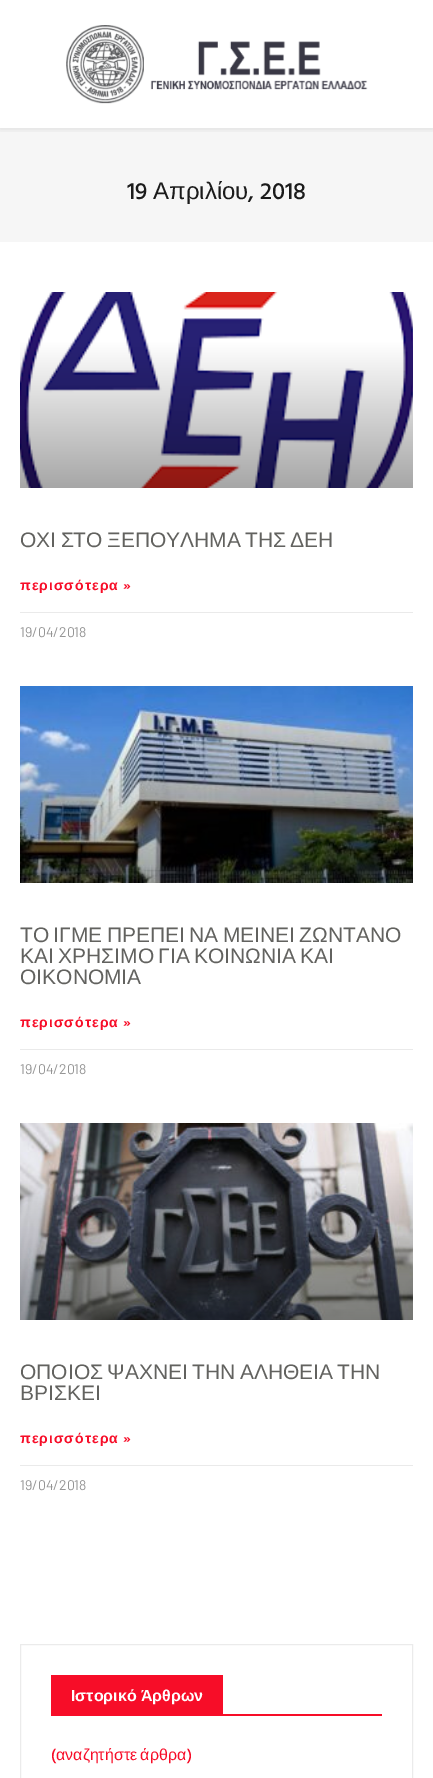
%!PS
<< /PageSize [433 1778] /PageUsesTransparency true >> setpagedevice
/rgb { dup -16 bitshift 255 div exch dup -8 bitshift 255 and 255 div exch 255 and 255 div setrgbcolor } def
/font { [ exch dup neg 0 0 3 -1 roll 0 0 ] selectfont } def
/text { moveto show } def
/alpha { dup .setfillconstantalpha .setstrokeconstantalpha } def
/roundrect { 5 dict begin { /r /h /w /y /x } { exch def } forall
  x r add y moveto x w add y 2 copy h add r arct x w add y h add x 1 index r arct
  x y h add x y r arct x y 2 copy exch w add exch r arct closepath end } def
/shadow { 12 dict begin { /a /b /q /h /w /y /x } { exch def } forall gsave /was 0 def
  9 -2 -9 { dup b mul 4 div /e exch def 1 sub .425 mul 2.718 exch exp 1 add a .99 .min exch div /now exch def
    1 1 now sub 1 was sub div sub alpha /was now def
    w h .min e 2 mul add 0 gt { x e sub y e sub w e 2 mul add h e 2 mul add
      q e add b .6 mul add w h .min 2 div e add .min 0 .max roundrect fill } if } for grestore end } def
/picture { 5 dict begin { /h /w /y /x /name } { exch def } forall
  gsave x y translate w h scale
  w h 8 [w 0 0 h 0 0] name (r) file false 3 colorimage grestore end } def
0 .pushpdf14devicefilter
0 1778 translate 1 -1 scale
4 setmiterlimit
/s1 { /HindVadodara-Medium 24 font 16#1B1B1B rgb } def
/s2 { /LiberationSans-Regular 24 font 16#1B1B1B rgb } def
/s3 { /Barlow-Regular 14 font 16#959595 rgb } def
/s4 { /LiberationSans-Regular 21 font 16#62625F rgb } def
/s5 { /LiberationSans-Bold 16 font 16#FFFFFF rgb } def
/s6 { /HindVadodara-Medium 16 font 16#F70D28 rgb } def
16#FFFFFF rgb
0 0 433 1778 rectfill
16#F6F6F6 rgb
0 128 433 114 rectfill
gsave
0 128 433 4 rectclip
16#000000 rgb
0 1 433 128 0 3.5 0.1 shadow
grestore
(pic1.raw) 66 25 302 79 picture
s1
(19) 127 199 text
s2
(Απριλίου) 153 199 text
s1
(, 2018) 248 199 text
(pic2.raw) 20 292 393 196 picture
/LiberationSans-Regular 21 font
16#62625F rgb
20 547 moveto -1.5 0 32 (ΟΧΙ ΣΤΟ ΞΕΠΟΥΛΗΜΑ ΤΗΣ ΔΕΗ) widthshow
/LiberationSans-Bold 14 font
16#F70D28 rgb
20 590 moveto 1 0 (περισσότερα) ashow
/HindVadodara-SemiBold 14 font
123 590 moveto 1 0 (») ashow
16#EAEAEA rgb
20 612 393 1 rectfill
s3
(19/04/2018) 20 637 text
(pic3.raw) 20 686 393 197 picture
/LiberationSans-Regular 21 font
16#62625F rgb
20 942 moveto -1.5 0 32 (ΤΟ ΙΓΜΕ ΠΡΕΠΕΙ ΝΑ ΜΕΙΝΕΙ ΖΩΝΤΑΝΟ) widthshow
20 963 moveto -1.5 0 32 (ΚΑΙ ΧΡΗΣΙΜΟ ΓΙΑ ΚΟΙΝΩΝΙΑ ΚΑΙ) widthshow
(ΟΙΚΟΝΟΜΙΑ) 20 984 text
/LiberationSans-Bold 14 font
16#F70D28 rgb
20 1027 moveto 1 0 (περισσότερα) ashow
/HindVadodara-SemiBold 14 font
123 1027 moveto 1 0 (») ashow
16#EAEAEA rgb
20 1049 393 1 rectfill
s3
(19/04/2018) 20 1074 text
(pic4.raw) 20 1123 393 197 picture
/LiberationSans-Regular 21 font
16#62625F rgb
20 1379 moveto -1.5 0 32 (ΟΠΟΙΟΣ ΨΑΧΝΕΙ ΤΗΝ ΑΛΗΘΕΙΑ ΤΗΝ) widthshow
(ΒΡΙΣΚΕΙ) 20 1400 text
/LiberationSans-Bold 14 font
16#F70D28 rgb
20 1443 moveto 1 0 (περισσότερα) ashow
/HindVadodara-SemiBold 14 font
123 1443 moveto 1 0 (») ashow
16#EAEAEA rgb
20 1465 393 1 rectfill
s3
(19/04/2018) 20 1490 text
16#EBEBEB rgb
20.5 1644.5 392 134 rectstroke
16#F70D28 rgb
51 1675 172 41 rectfill
s5
(Ιστορικό Άρθρων) 71 1701 text
16#F70D28 rgb
223 1714 159 2 rectfill
s6
(\() 51 1760 text
/LiberationSans-Regular 16 font
56 1760 moveto -1 0 32 (αναζητήστε άρθρα) widthshow
s6
(\)) 187 1760 text
.poppdf14devicefilter showpage
